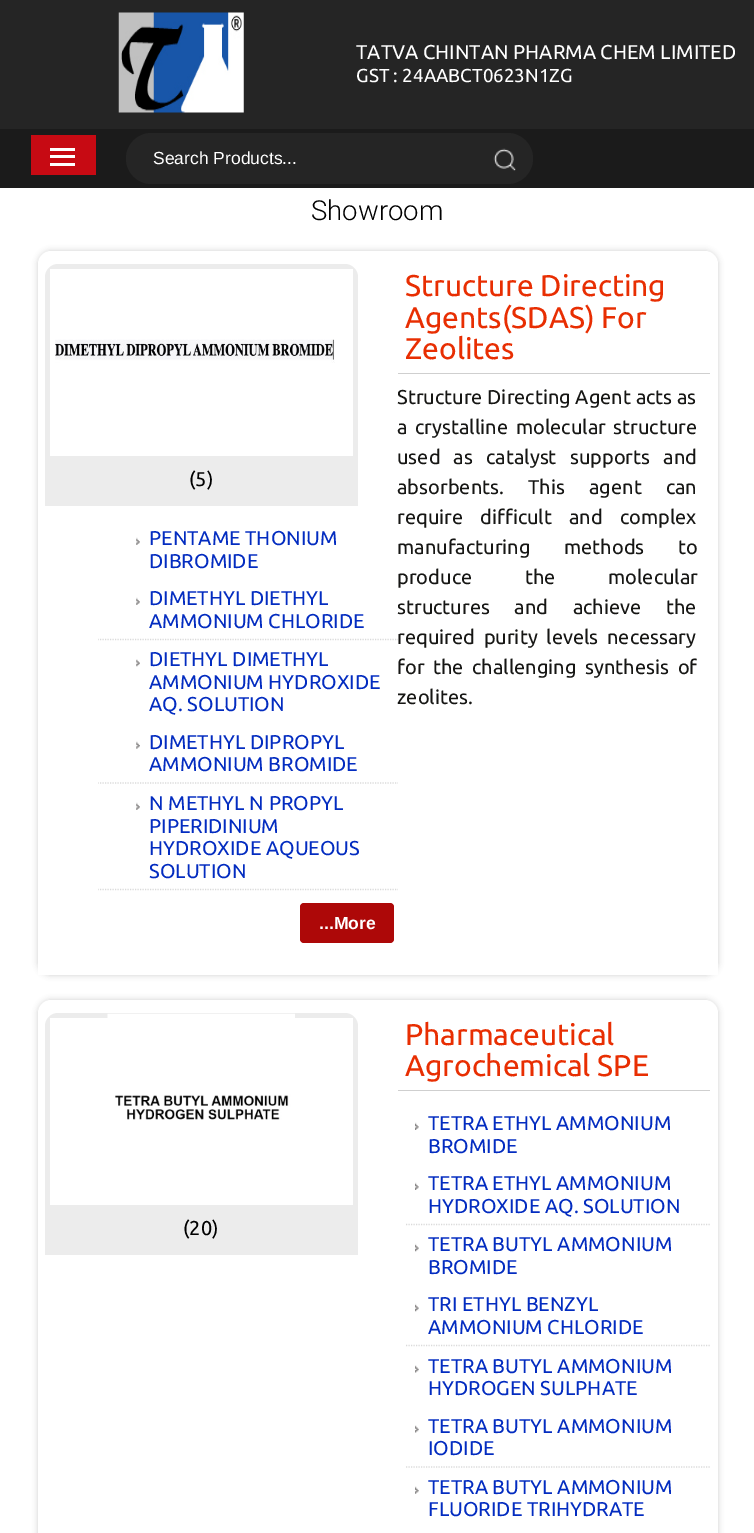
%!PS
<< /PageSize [754 1533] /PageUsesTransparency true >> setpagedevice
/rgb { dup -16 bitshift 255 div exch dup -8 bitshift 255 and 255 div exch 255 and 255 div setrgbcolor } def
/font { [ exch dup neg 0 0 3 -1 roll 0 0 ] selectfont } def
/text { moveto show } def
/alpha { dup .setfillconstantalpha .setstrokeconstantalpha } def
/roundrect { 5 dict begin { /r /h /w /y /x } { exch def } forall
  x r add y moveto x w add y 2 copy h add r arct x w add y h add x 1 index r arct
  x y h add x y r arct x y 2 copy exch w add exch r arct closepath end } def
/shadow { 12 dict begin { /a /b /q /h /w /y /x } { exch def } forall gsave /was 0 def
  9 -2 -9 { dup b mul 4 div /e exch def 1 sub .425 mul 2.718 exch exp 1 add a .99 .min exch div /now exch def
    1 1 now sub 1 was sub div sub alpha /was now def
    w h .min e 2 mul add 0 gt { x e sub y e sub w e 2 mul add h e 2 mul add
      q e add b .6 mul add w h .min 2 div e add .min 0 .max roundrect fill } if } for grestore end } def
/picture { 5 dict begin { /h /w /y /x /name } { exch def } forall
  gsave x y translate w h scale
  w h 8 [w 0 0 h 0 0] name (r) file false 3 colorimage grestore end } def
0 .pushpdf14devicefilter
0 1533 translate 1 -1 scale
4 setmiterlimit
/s1 { /Ubuntu-Regular 20 font 16#FFFFFF rgb } def
/s2 { /Ubuntu-Regular 18.75 font 16#FFFFFF rgb } def
/s3 { /LiberationSans-Regular 17.5 font 16#FFFFFF rgb } def
/s4 { /Roboto-Light 27.5 font 16#000000 rgb } def
/s5 { /Ubuntu-Regular 20 font 16#000000 rgb } def
/s6 { /Ubuntu-Regular 30 font 16#E82E02 rgb } def
/s7 { /Ubuntu-Regular 20 font 16#161614 rgb } def
/s8 { /Ubuntu-Regular 20 font 16#032CC0 rgb } def
/s9 { /LiberationSans-Bold 17.5 font 16#FFFFFF rgb } def
16#252525 rgb
0 0 754 1533 rectfill
(pic1.raw) 118 12 126 101 picture
s1
(TATVA CHINTAN PHARMA CHEM LIMITED) 356 59 text
s2
(GST : 24AABCT0623N1ZG) 356 82 text
16#1B1B1B rgb
0 129 754 59 rectfill
16#C70A13 rgb
31 135 65 40 rectfill
16#FFFFFF rgb
50 148 25 3 rectfill
50 155 25 3 rectfill
50 163 25 3 rectfill
16#252525 rgb
126 133 407 51 25.5 roundrect fill
s3
(Search Products...) 153 164 text
(pic2.raw) 493 148 23 23 picture
0 188 754 1345 rectfill
s4
(Showroom) 311 220 text
16#323232 rgb
38 251 680 724 13 3 0.23 shadow
16#FFFFFF rgb
51 251 moveto 705 251 lineto 712 251 718 257 718 264 curveto 718 975 lineto 38 975 lineto 38 264 lineto 38 257 44 251 51 251 curveto closepath fill
16#ECECEC rgb
58 264 moveto 345 264 lineto 352 264 358 270 358 277 curveto 358 506 lineto 45 506 lineto 45 277 lineto 45 270 51 264 58 264 curveto closepath fill
16#FFFFFF rgb
50 269 303 187 rectfill
(pic3.raw) 55 339 280 24 picture
s5
(\(5\)) 189 486 text
16#CFCFCF rgb
398 373 312 1 rectfill
s6
(Structure Directing) 405 296 text
(Agents\(SDAS\) For) 405 328 text
(Zeolites) 405 359 text
s7
(Structure Directing Agent acts as) 397 404 text
397 434 moveto 3 0 32 (a crystalline molecular structure) widthshow
397 464 moveto 8.5 0 32 (used as catalyst supports and) widthshow
397 494 moveto 19.5 0 32 (absorbents. This agent can) widthshow
397 524 moveto 12.5 0 32 (require difficult and complex) widthshow
397 554 moveto 29 0 32 (manufacturing methods to) widthshow
397 584 moveto 48 0 32 (produce the molecular) widthshow
397 614 moveto 20 0 32 (structures and achieve the) widthshow
397 644 moveto 4 0 32 (required purity levels necessary) widthshow
397 674 moveto 4 0 32 (for the challenging synthesis of) widthshow
(zeolites.) 397 704 text
gsave
98 519 300 431 rectclip
16#DADADA rgb
1.2 setlinewidth
[1.25 1.25] 0 setdash
97.5 639.5 moveto 400 639.5 lineto stroke
grestore
(pic4.raw) 136 537 4 8 picture
s8
(PENTAME THONIUM) 149 545 text
(DIBROMIDE) 149 568 text
(pic4.raw) 136 597 4 8 picture
(DIMETHYL DIETHYL) 149 605 text
(AMMONIUM CHLORIDE) 149 628 text
gsave
98 519 300 431 rectclip
16#DADADA rgb
1.2 setlinewidth
[1.25 1.25] 0 setdash
97.5 783 moveto 400 783 lineto stroke
grestore
(pic5.raw) 136 659 4 8 picture
(DIETHYL DIMETHYL) 149 666 text
(AMMONIUM HYDROXIDE) 149 689 text
(AQ. SOLUTION) 149 711 text
(pic6.raw) 136 741 4 8 picture
(DIMETHYL DIPROPYL) 149 749 text
(AMMONIUM BROMIDE) 149 771 text
gsave
98 519 300 431 rectclip
16#DADADA rgb
1.2 setlinewidth
[1.25 1.25] 0 setdash
97.5 889.5 moveto 400 889.5 lineto stroke
grestore
(pic4.raw) 136 802 4 8 picture
(N METHYL N PROPYL) 149 810 text
(PIPERIDINIUM) 149 833 text
(HYDROXIDE AQUEOUS) 149 855 text
(SOLUTION) 149 878 text
16#AD0808 rgb
300 903 94 40 4 roundrect fill
s9
(...More) 319 929 text
16#323232 rgb
38 1000 680 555 13 3 0.23 shadow
16#FFFFFF rgb
51 1000 moveto 705 1000 lineto 712 1000 718 1006 718 1013 curveto 718 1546 lineto 38 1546 lineto 38 1013 lineto 38 1006 44 1000 51 1000 curveto closepath fill
16#CFCFCF rgb
398 1090 312 1 rectfill
s6
(Pharmaceutical) 405 1045 text
(Agrochemical SPE) 405 1076 text
16#ECECEC rgb
58 1013 moveto 345 1013 lineto 352 1013 358 1019 358 1026 curveto 358 1255 lineto 45 1255 lineto 45 1026 lineto 45 1019 51 1013 58 1013 curveto closepath fill
16#FFFFFF rgb
50 1018 303 187 rectfill
(pic7.raw) 107 1013 188 107 picture
s5
(\(20\)) 183 1235 text
16#DADADA rgb
1.2 setlinewidth
[1.25 1.25] 0 setdash
406 1224.5 moveto 710 1224.5 lineto stroke
(pic8.raw) 415 1122 4 8 picture
s8
(TETRA ETHYL AMMONIUM) 428 1130 text
(BROMIDE) 428 1153 text
(pic8.raw) 415 1182 4 8 picture
(TETRA ETHYL AMMONIUM) 428 1190 text
(HYDROXIDE AQ. SOLUTION) 428 1213 text
16#DADADA rgb
406 1345.5 moveto 710 1345.5 lineto stroke
(pic9.raw) 415 1243 4 9 picture
s8
(TETRA BUTYL AMMONIUM) 428 1251 text
(BROMIDE) 428 1274 text
(pic9.raw) 415 1303 4 9 picture
(TRI ETHYL BENZYL) 428 1311 text
(AMMONIUM CHLORIDE) 428 1334 text
16#DADADA rgb
406 1467 moveto 710 1467 lineto stroke
(pic10.raw) 415 1365 4 8 picture
s8
(TETRA BUTYL AMMONIUM) 428 1373 text
(HYDROGEN SULPHATE) 428 1395 text
(pic10.raw) 415 1425 4 8 picture
(TETRA BUTYL AMMONIUM) 428 1433 text
(IODIDE) 428 1455 text
(pic11.raw) 415 1486 4 8 picture
(TETRA BUTYL AMMONIUM) 428 1494 text
(FLUORIDE TRIHYDRATE) 428 1516 text
.poppdf14devicefilter showpage
